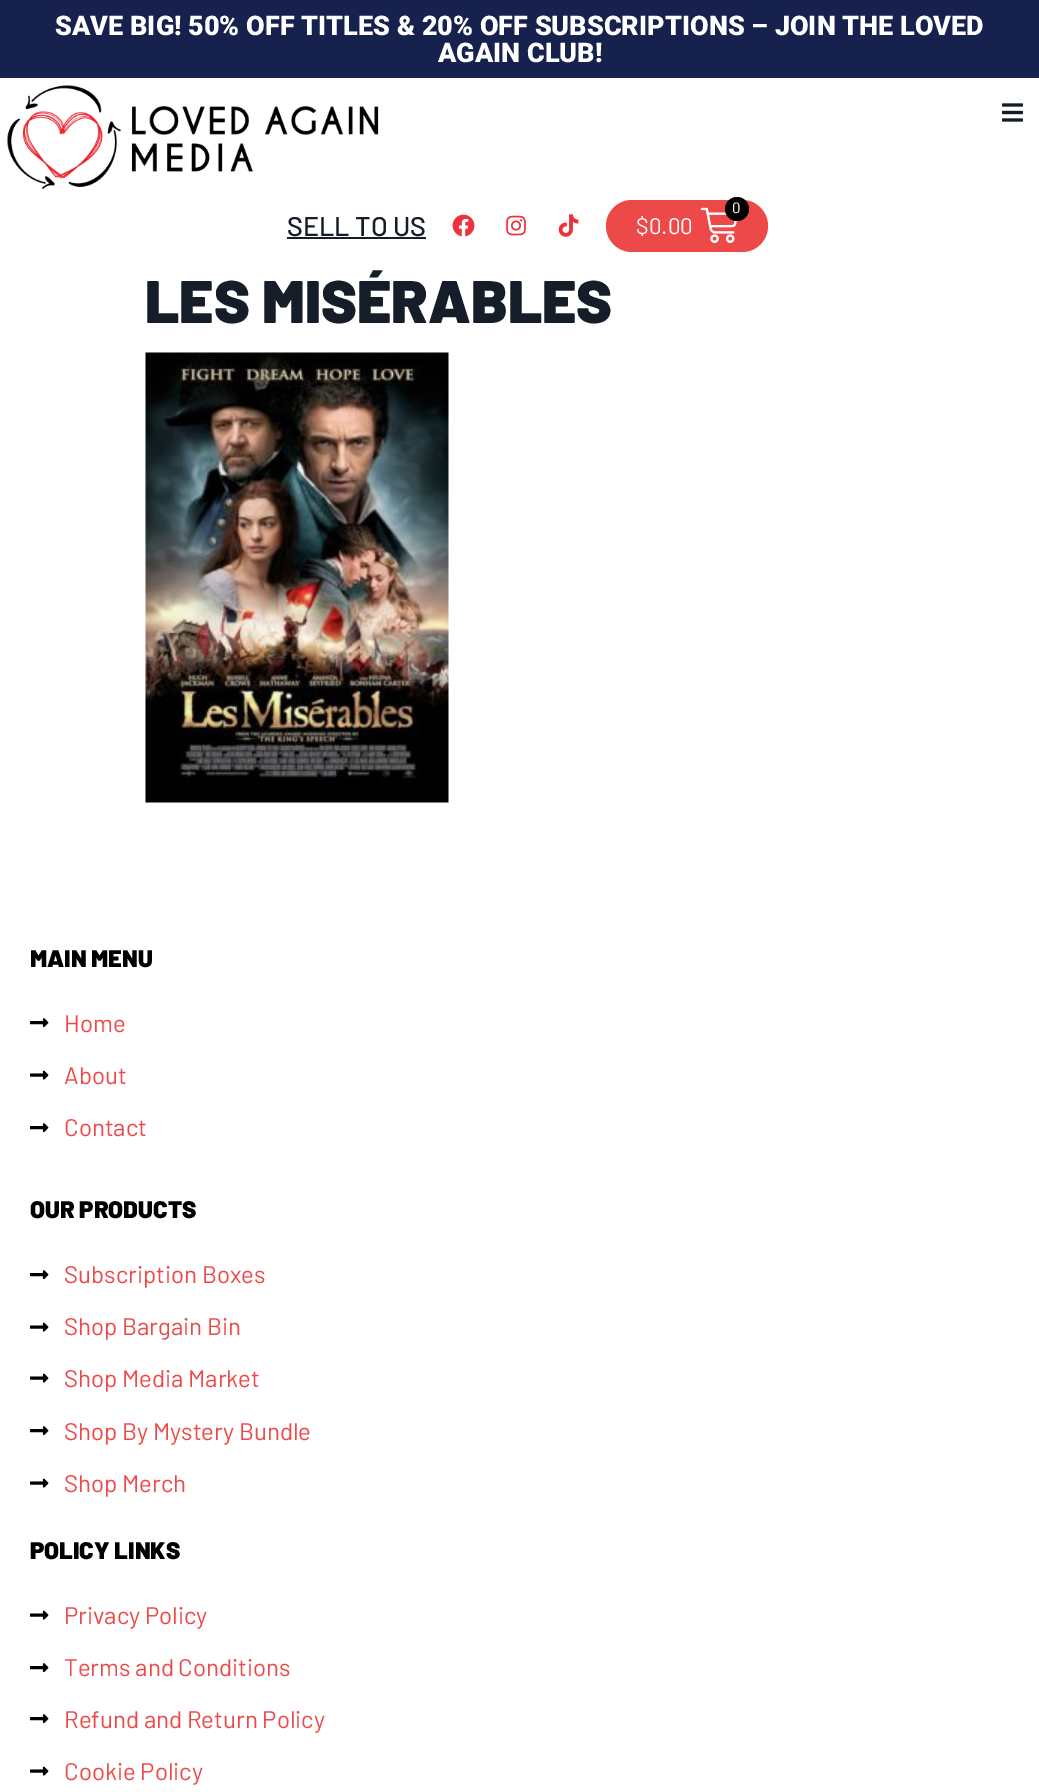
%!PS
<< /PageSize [1039 1792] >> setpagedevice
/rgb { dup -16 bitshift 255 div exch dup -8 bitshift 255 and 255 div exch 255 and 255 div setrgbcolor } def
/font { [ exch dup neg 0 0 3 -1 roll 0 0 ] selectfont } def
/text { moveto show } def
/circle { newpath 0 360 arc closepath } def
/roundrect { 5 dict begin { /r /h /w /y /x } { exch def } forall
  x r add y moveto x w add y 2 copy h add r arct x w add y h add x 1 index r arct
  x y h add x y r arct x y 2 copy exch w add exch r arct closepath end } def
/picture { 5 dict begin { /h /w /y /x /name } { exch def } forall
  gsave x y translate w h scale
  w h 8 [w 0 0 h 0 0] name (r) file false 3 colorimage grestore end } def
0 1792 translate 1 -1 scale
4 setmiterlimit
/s1 { /Roboto-Black 27 font 16#FFFFFF rgb } def
/s2 { /Barlow-Medium 27 font 16#151D28 rgb } def
/s3 { /Barlow-Regular 15 font 16#FFFFFF rgb } def
/s4 { /Barlow-Regular 22.5 font 16#FFFFFF rgb } def
/s5 { /Barlow-Black 60 font 16#151D28 rgb } def
/s6 { /Barlow-Black 24 font 16#000000 rgb } def
/s7 { /Barlow-Regular 24 font 16#ED4949 rgb } def
16#FFFFFF rgb
0 0 1039 1792 rectfill
16#16214D rgb
0 0 1039 78 rectfill
s1
(SAVE BIG! 50% OFF TITLES & 20% OFF SUBSCRIPTIONS – JOIN THE LOVED) 55 35 text
(AGAIN CLUB!) 438 62 text
(pic1.raw) 7 85 372 104 picture
(pic2.raw) 1002 103 21 19 picture
s2
(SELL TO US) 287 236 text
287 237 139 2 rectfill
(pic3.raw) 452 214 23 23 picture
(pic4.raw) 506 215 20 21 picture
(pic5.raw) 558 214 21 23 picture
16#ED4949 rgb
606 200 162 52 26 roundrect fill
(pic6.raw) 700 207 37 36 picture
16#000000 rgb
737 209 12 circle fill
s3
(0) 732 213 text
s4
($0.00) 636 234 text
s5
(LES MISÉRABLES) 145 323 text
(pic7.raw) 145 352 304 451 picture
s6
(MAIN MENU) 30 967 text
(pic8.raw) 30 1018 19 10 picture
s7
(Home) 64 1032 text
(pic9.raw) 30 1070 19 10 picture
(About) 64 1084 text
(pic8.raw) 30 1123 19 10 picture
(Contact) 64 1136 text
s6
(OUR PRODUCTS) 30 1218 text
(pic8.raw) 30 1270 19 10 picture
s7
(Subscription Boxes) 64 1283 text
(pic9.raw) 30 1322 19 10 picture
(Shop Bargain Bin) 64 1335 text
(pic9.raw) 30 1373 19 10 picture
(Shop Media Market) 64 1387 text
(pic8.raw) 30 1426 19 10 picture
(Shop By Mystery Bundle) 64 1440 text
(pic9.raw) 30 1478 19 10 picture
(Shop Merch) 64 1492 text
s6
(POLICY LINKS) 30 1559 text
(pic9.raw) 30 1610 19 10 picture
s7
(Privacy Policy) 64 1624 text
(pic8.raw) 30 1663 19 10 picture
(Terms and Conditions) 64 1676 text
(pic8.raw) 30 1714 19 10 picture
(Refund and Return Policy) 64 1728 text
(pic9.raw) 30 1766 19 10 picture
(Cookie Policy) 64 1780 text
showpage
